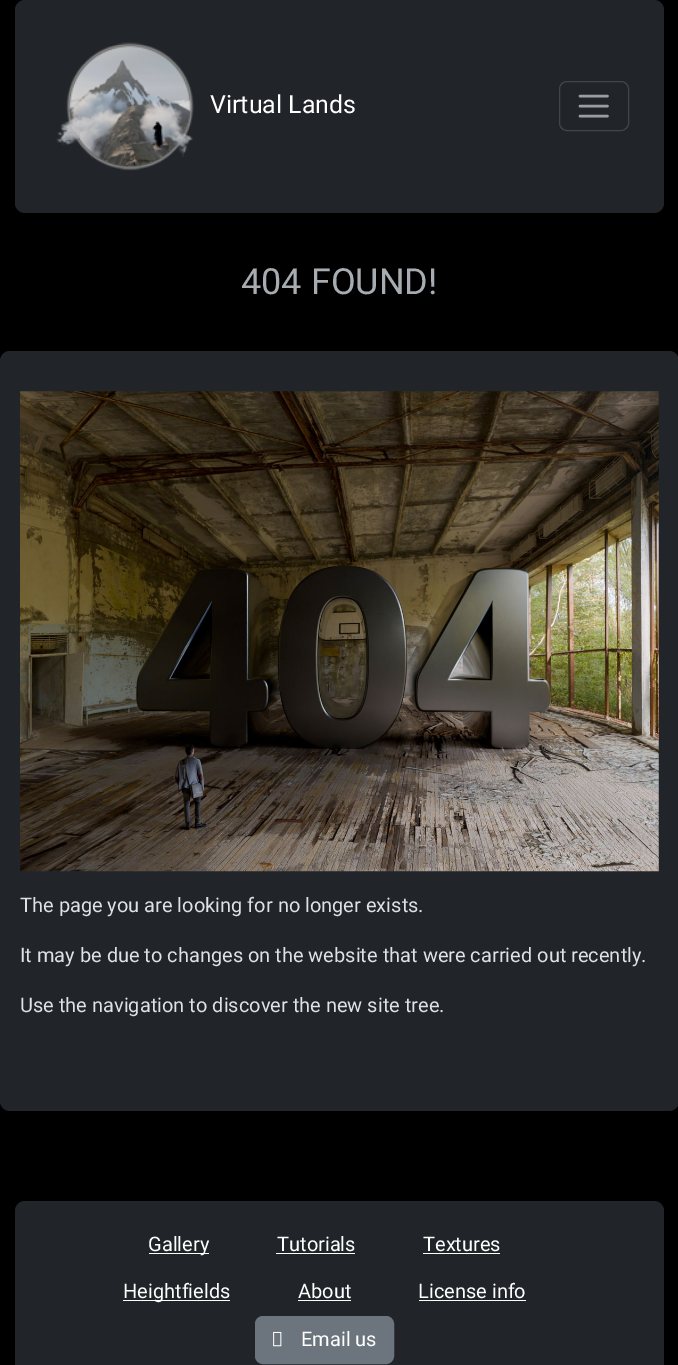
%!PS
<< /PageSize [678 1365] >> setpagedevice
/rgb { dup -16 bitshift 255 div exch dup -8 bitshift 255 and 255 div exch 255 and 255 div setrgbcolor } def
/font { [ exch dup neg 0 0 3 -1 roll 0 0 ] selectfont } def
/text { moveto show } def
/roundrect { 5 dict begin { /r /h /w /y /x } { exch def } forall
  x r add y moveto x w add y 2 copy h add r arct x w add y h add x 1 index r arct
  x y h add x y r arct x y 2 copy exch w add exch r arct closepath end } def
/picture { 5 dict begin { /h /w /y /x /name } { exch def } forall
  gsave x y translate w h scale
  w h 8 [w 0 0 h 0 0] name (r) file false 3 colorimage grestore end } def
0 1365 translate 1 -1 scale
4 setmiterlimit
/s1 { /Roboto-Regular 25 font 16#FFFFFF rgb } def
/s2 { /Roboto-Regular 36 font 16#A7ACB1 rgb } def
/s3 { /Roboto-Regular 20 font 16#DEE2E6 rgb } def
/s4 { /Roboto-Regular 20 font 16#FFFFFF rgb } def
16#000000 rgb
0 0 678 1365 rectfill
16#212529 rgb
15 0 649 213 10 roundrect fill
(pic1.raw) 56 42 138 129 picture
s1
(Virtual Lands) 210 113 text
16#424649 rgb
559.5 81.5 69 49 7.5 roundrect stroke
16#9B9D9F rgb
2.5 setlinewidth
1 setlinecap
580 96 moveto 607.5 96 lineto 580 106 moveto 607.5 106 lineto 580 116 moveto 607.5 116 lineto stroke
s2
(404 FOUND!) 241 294 text
16#212529 rgb
0 351 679 760 10 roundrect fill
(pic2.raw) 20 391 639 481 picture
s3
(The page you are looking for no longer exists.) 20 912 text
(It may be due to changes on the website that were carried out recently.) 20 962 text
(Use the navigation to discover the new site tree.) 20 1012 text
16#212529 rgb
15 1201 649 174 10 roundrect fill
16#FFFFFF rgb
149 1253 60 1 rectfill
(Gallery) 148 1251 text
(Tutorials) 277 1251 text
276 1253 79 1 rectfill
(Textures) 423 1251 text
423 1253 77 1 rectfill
123 1300 107 1 rectfill
(Heightfields) 123 1298 text
(About) 298 1298 text
298 1300 53 1 rectfill
(License info) 418 1298 text
419 1300 107 1 rectfill
16#6C757D rgb
255.5 1316.5 138 47 7.5 roundrect gsave fill grestore
1 setlinewidth
0 setlinecap
stroke
(pic3.raw) 273 1331 9 16 picture
s4
(Email us) 301 1346 text
showpage
